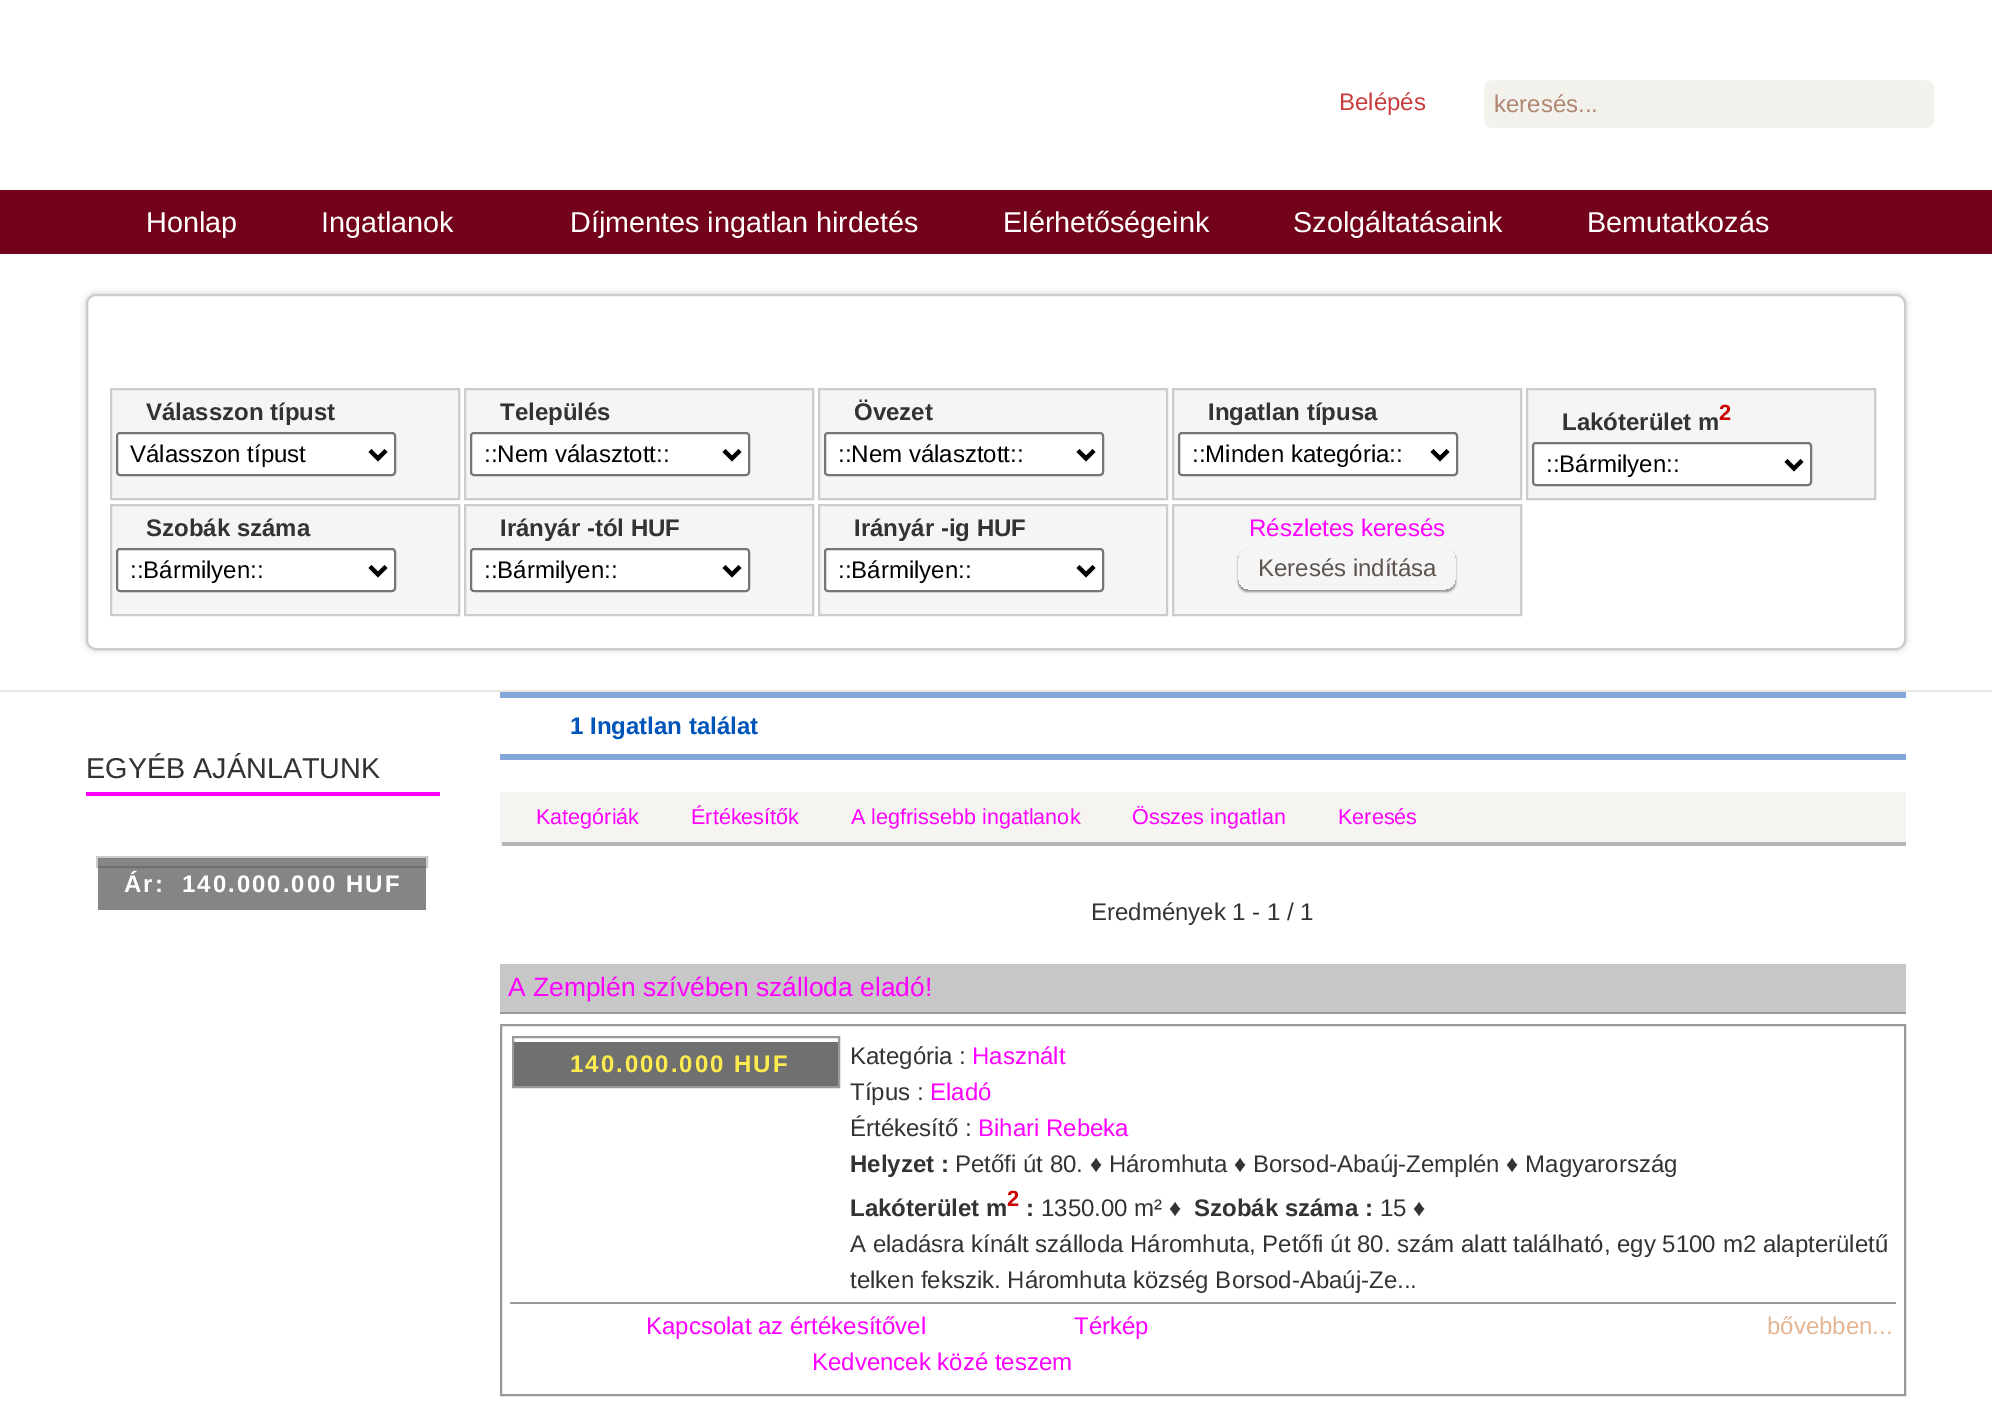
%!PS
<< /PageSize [1992 1402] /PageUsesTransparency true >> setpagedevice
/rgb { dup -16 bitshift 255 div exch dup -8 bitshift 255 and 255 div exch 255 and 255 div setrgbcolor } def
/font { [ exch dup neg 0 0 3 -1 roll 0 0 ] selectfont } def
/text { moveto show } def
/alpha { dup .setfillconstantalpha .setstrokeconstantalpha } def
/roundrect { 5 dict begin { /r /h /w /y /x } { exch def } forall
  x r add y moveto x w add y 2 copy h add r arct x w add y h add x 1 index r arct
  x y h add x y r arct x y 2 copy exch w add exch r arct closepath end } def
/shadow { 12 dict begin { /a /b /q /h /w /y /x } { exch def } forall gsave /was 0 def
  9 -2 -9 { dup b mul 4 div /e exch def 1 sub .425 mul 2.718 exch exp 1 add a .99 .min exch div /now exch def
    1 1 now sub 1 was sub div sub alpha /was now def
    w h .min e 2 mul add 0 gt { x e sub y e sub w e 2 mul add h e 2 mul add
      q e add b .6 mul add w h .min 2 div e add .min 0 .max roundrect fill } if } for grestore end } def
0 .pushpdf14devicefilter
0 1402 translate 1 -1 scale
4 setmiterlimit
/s1 { /LiberationSans-Regular 24 font 16#C93C3C rgb } def
/s2 { /LiberationSans-Regular 24 font 16#B08572 rgb } def
/s3 { /LiberationSans-Regular 28.75 font 16#FFFFFF rgb } def
/s4 { /LiberationSans-Bold 24 font 16#333333 rgb } def
/s5 { /LiberationSans-Regular 24 font 16#000000 rgb } def
/s6 { /LiberationSans-Bold 22 font 16#CC0000 rgb } def
/s7 { /LiberationSans-Regular 24 font 16#FF00FF rgb } def
/s8 { /LiberationSans-Regular 24 font 16#5D544F rgb } def
/s9 { /LiberationSans-Regular 28.75 font 16#333333 rgb } def
/s10 { /LiberationSans-Bold 24 font 16#0055BB rgb } def
/s11 { /LiberationSans-Regular 21.6 font 16#FF00FF rgb } def
/s12 { /LiberationSans-Regular 24 font 16#333333 rgb } def
/s13 { /LiberationSans-Regular 26.4 font 16#FF00FF rgb } def
/s14 { /LiberationSans-Regular 24 font 16#E4B490 rgb } def
16#FFFFFF rgb
0 0 1992 1402 rectfill
s1
(Belépés) 1339 110 text
16#F2F1EB rgb
1483 79 452 50 9 roundrect gsave fill grestore
16#FFFFFF rgb
2 setlinewidth
stroke
s2
(keresés...) 1494 112 text
16#73031A rgb
0 190 1992 64 rectfill
s3
(Honlap) 146 232 text
(Ingatlanok) 321 232 text
(Díjmentes ingatlan hirdetés) 570 232 text
(Elérhetőségeink) 1003 232 text
(Szolgáltatásaink) 1293 232 text
(Bemutatkozás) 1587 232 text
16#EBE6E2 rgb
0 690 1992 2 rectfill
gsave
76 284 moveto 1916 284 lineto 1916 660 lineto 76 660 lineto closepath 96 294 moveto 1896 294 lineto 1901.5 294 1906 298.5 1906 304 curveto 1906 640 lineto 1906 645.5 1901.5 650 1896 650 curveto 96 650 lineto 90.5 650 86 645.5 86 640 curveto 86 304 lineto 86 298.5 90.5 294 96 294 curveto closepath eoclip newpath
16#000000 rgb
86 294 1820 356 10 3 0.2 shadow
grestore
16#CCCCCC rgb
87 295 1818 354 9 roundrect stroke
16#F5F5F5 rgb
111 389 moveto 459 389 lineto 459 499 lineto 111 499 lineto closepath gsave fill grestore
16#CCCCCC rgb
stroke
s4
(Válasszon típust) 146 420 text
16#FFFFFF rgb
117 433 278 42 3 roundrect gsave fill grestore
16#767676 rgb
stroke
16#000000 rgb
4 setlinewidth
370 450.5 moveto 378 458.5 lineto 386 450.5 lineto stroke
s5
(Válasszon típust) 130 462 text
16#F5F5F5 rgb
465 389 moveto 813 389 lineto 813 499 lineto 465 499 lineto closepath gsave fill grestore
16#CCCCCC rgb
2 setlinewidth
stroke
s4
(Település) 500 420 text
16#FFFFFF rgb
471 433 278 42 3 roundrect gsave fill grestore
16#767676 rgb
stroke
16#000000 rgb
4 setlinewidth
724 450.5 moveto 732 458.5 lineto 740 450.5 lineto stroke
s5
(::Nem választott::) 484 462 text
16#F5F5F5 rgb
819 389 moveto 1167 389 lineto 1167 499 lineto 819 499 lineto closepath gsave fill grestore
16#CCCCCC rgb
2 setlinewidth
stroke
s4
(Övezet) 854 420 text
16#FFFFFF rgb
825 433 278 42 3 roundrect gsave fill grestore
16#767676 rgb
stroke
16#000000 rgb
4 setlinewidth
1078 450.5 moveto 1086 458.5 lineto 1094 450.5 lineto stroke
s5
(::Nem választott::) 838 462 text
16#F5F5F5 rgb
1173 389 moveto 1521 389 lineto 1521 499 lineto 1173 499 lineto closepath gsave fill grestore
16#CCCCCC rgb
2 setlinewidth
stroke
s4
(Ingatlan típusa) 1208 420 text
16#FFFFFF rgb
1179 433 278 42 3 roundrect gsave fill grestore
16#767676 rgb
stroke
16#000000 rgb
4 setlinewidth
1432 450.5 moveto 1440 458.5 lineto 1448 450.5 lineto stroke
s5
(::Minden kategória::) 1192 462 text
16#F5F5F5 rgb
1527 389 moveto 1875 389 lineto 1875 499 lineto 1527 499 lineto closepath gsave fill grestore
16#CCCCCC rgb
2 setlinewidth
stroke
s4
(Lakóterület m) 1562 430 text
s6
(2) 1719 420 text
16#FFFFFF rgb
1533 443 278 42 3 roundrect gsave fill grestore
16#767676 rgb
stroke
16#000000 rgb
4 setlinewidth
1786 460.5 moveto 1794 468.5 lineto 1802 460.5 lineto stroke
s5
(::Bármilyen::) 1546 472 text
16#F5F5F5 rgb
111 505 moveto 459 505 lineto 459 615 lineto 111 615 lineto closepath gsave fill grestore
16#CCCCCC rgb
2 setlinewidth
stroke
s4
(Szobák száma) 146 536 text
16#FFFFFF rgb
117 549 278 42 3 roundrect gsave fill grestore
16#767676 rgb
stroke
16#000000 rgb
4 setlinewidth
370 566.5 moveto 378 574.5 lineto 386 566.5 lineto stroke
s5
(::Bármilyen::) 130 578 text
16#F5F5F5 rgb
465 505 moveto 813 505 lineto 813 615 lineto 465 615 lineto closepath gsave fill grestore
16#CCCCCC rgb
2 setlinewidth
stroke
s4
(Irányár -tól HUF) 500 536 text
16#FFFFFF rgb
471 549 278 42 3 roundrect gsave fill grestore
16#767676 rgb
stroke
16#000000 rgb
4 setlinewidth
724 566.5 moveto 732 574.5 lineto 740 566.5 lineto stroke
s5
(::Bármilyen::) 484 578 text
16#F5F5F5 rgb
819 505 moveto 1167 505 lineto 1167 615 lineto 819 615 lineto closepath gsave fill grestore
16#CCCCCC rgb
2 setlinewidth
stroke
s4
(Irányár -ig HUF) 854 536 text
16#FFFFFF rgb
825 549 278 42 3 roundrect gsave fill grestore
16#767676 rgb
stroke
16#000000 rgb
4 setlinewidth
1078 566.5 moveto 1086 574.5 lineto 1094 566.5 lineto stroke
s5
(::Bármilyen::) 838 578 text
16#F5F5F5 rgb
1173 505 moveto 1521 505 lineto 1521 615 lineto 1173 615 lineto closepath gsave fill grestore
16#CCCCCC rgb
2 setlinewidth
stroke
s7
(Részletes keresés) 1249 536 text
gsave
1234 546 moveto 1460 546 lineto 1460 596 lineto 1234 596 lineto closepath 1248 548 moveto 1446 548 lineto 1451.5 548 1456 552.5 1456 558 curveto 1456 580 lineto 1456 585.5 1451.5 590 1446 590 curveto 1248 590 lineto 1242.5 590 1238 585.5 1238 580 curveto 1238 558 lineto 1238 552.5 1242.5 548 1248 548 curveto closepath eoclip newpath
16#000000 rgb
1238 550 218 42 10 1 0.4 shadow
grestore
s8
(Keresés indítása) 1258 576 text
16#FF00FF rgb
86 792 354 4 rectfill
s9
(EGYÉB AJÁNLATUNK) 86 778 text
16#CCCCCC rgb
97 857 330 10 rectstroke
0.6 alpha
16#333333 rgb
98 858 328 52 rectfill
/LiberationSans-Bold 24 font
1 alpha
16#FFFFFF rgb
124 892 moveto 2 0 (Ár:  140.000.000 HUF) ashow
16#84A7DB rgb
500 692 1406 6 rectfill
500 754 1406 6 rectfill
s10
(1 Ingatlan találat) 570 734 text
16#F5F4F1 rgb
500 792 1406 54 2 roundrect fill
16#B5B5B5 rgb
502 842 1404 4 rectfill
s11
(Kategóriák) 536 824 text
(Értékesítők) 691 824 text
(A legfrissebb ingatlanok) 851 824 text
(Összes ingatlan) 1132 824 text
(Keresés) 1338 824 text
s12
(Eredmények 1 - 1 / 1) 1091 920 text
16#C7C7C7 rgb
500 964 1406 48 rectfill
16#999999 rgb
500 1012 1406 2 rectfill
s13
(A Zemplén szívében szálloda eladó!) 508 996 text
16#999999 rgb
501 1025 1404 370 rectstroke
513 1037 326 50 rectstroke
16#707070 rgb
514 1042 324 44 rectfill
/LiberationSans-Bold 24 font
16#FEEB4D rgb
570 1072 moveto 2 0 (140.000.000 HUF) ashow
s12
(Kategória :) 850 1064 text
s7
(Használt) 972 1064 text
s12
(Típus :) 850 1100 text
s7
(Eladó) 930 1100 text
s12
(Értékesítő :) 850 1136 text
s7
(Bihari Rebeka) 978 1136 text
s4
(Helyzet :) 850 1172 text
s12
(Petőfi út 80. ♦ Háromhuta ♦ Borsod-Abaúj-Zemplén ♦ Magyarország) 955 1172 text
s4
(Lakóterület m) 850 1216 text
s6
(2) 1007 1206 text
s4
(:) 1026 1216 text
s12
(1350.00 m² ♦) 1041 1216 text
s4
(Szobák száma :) 1194 1216 text
s12
(15 ♦) 1380 1216 text
(A eladásra kínált szálloda Háromhuta, Petőfi út 80. szám alatt található, egy 5100 m2 alapterületű) 850 1252 text
(telken fekszik. Háromhuta község Borsod-Abaúj-Ze...) 850 1288 text
16#999999 rgb
510 1302 1386 2 rectfill
s7
(Kapcsolat az értékesítővel) 646 1334 text
(Térkép) 1074 1334 text
(Kedvencek közé teszem) 812 1370 text
s14
(bővebben...) 1767 1334 text
.poppdf14devicefilter showpage
